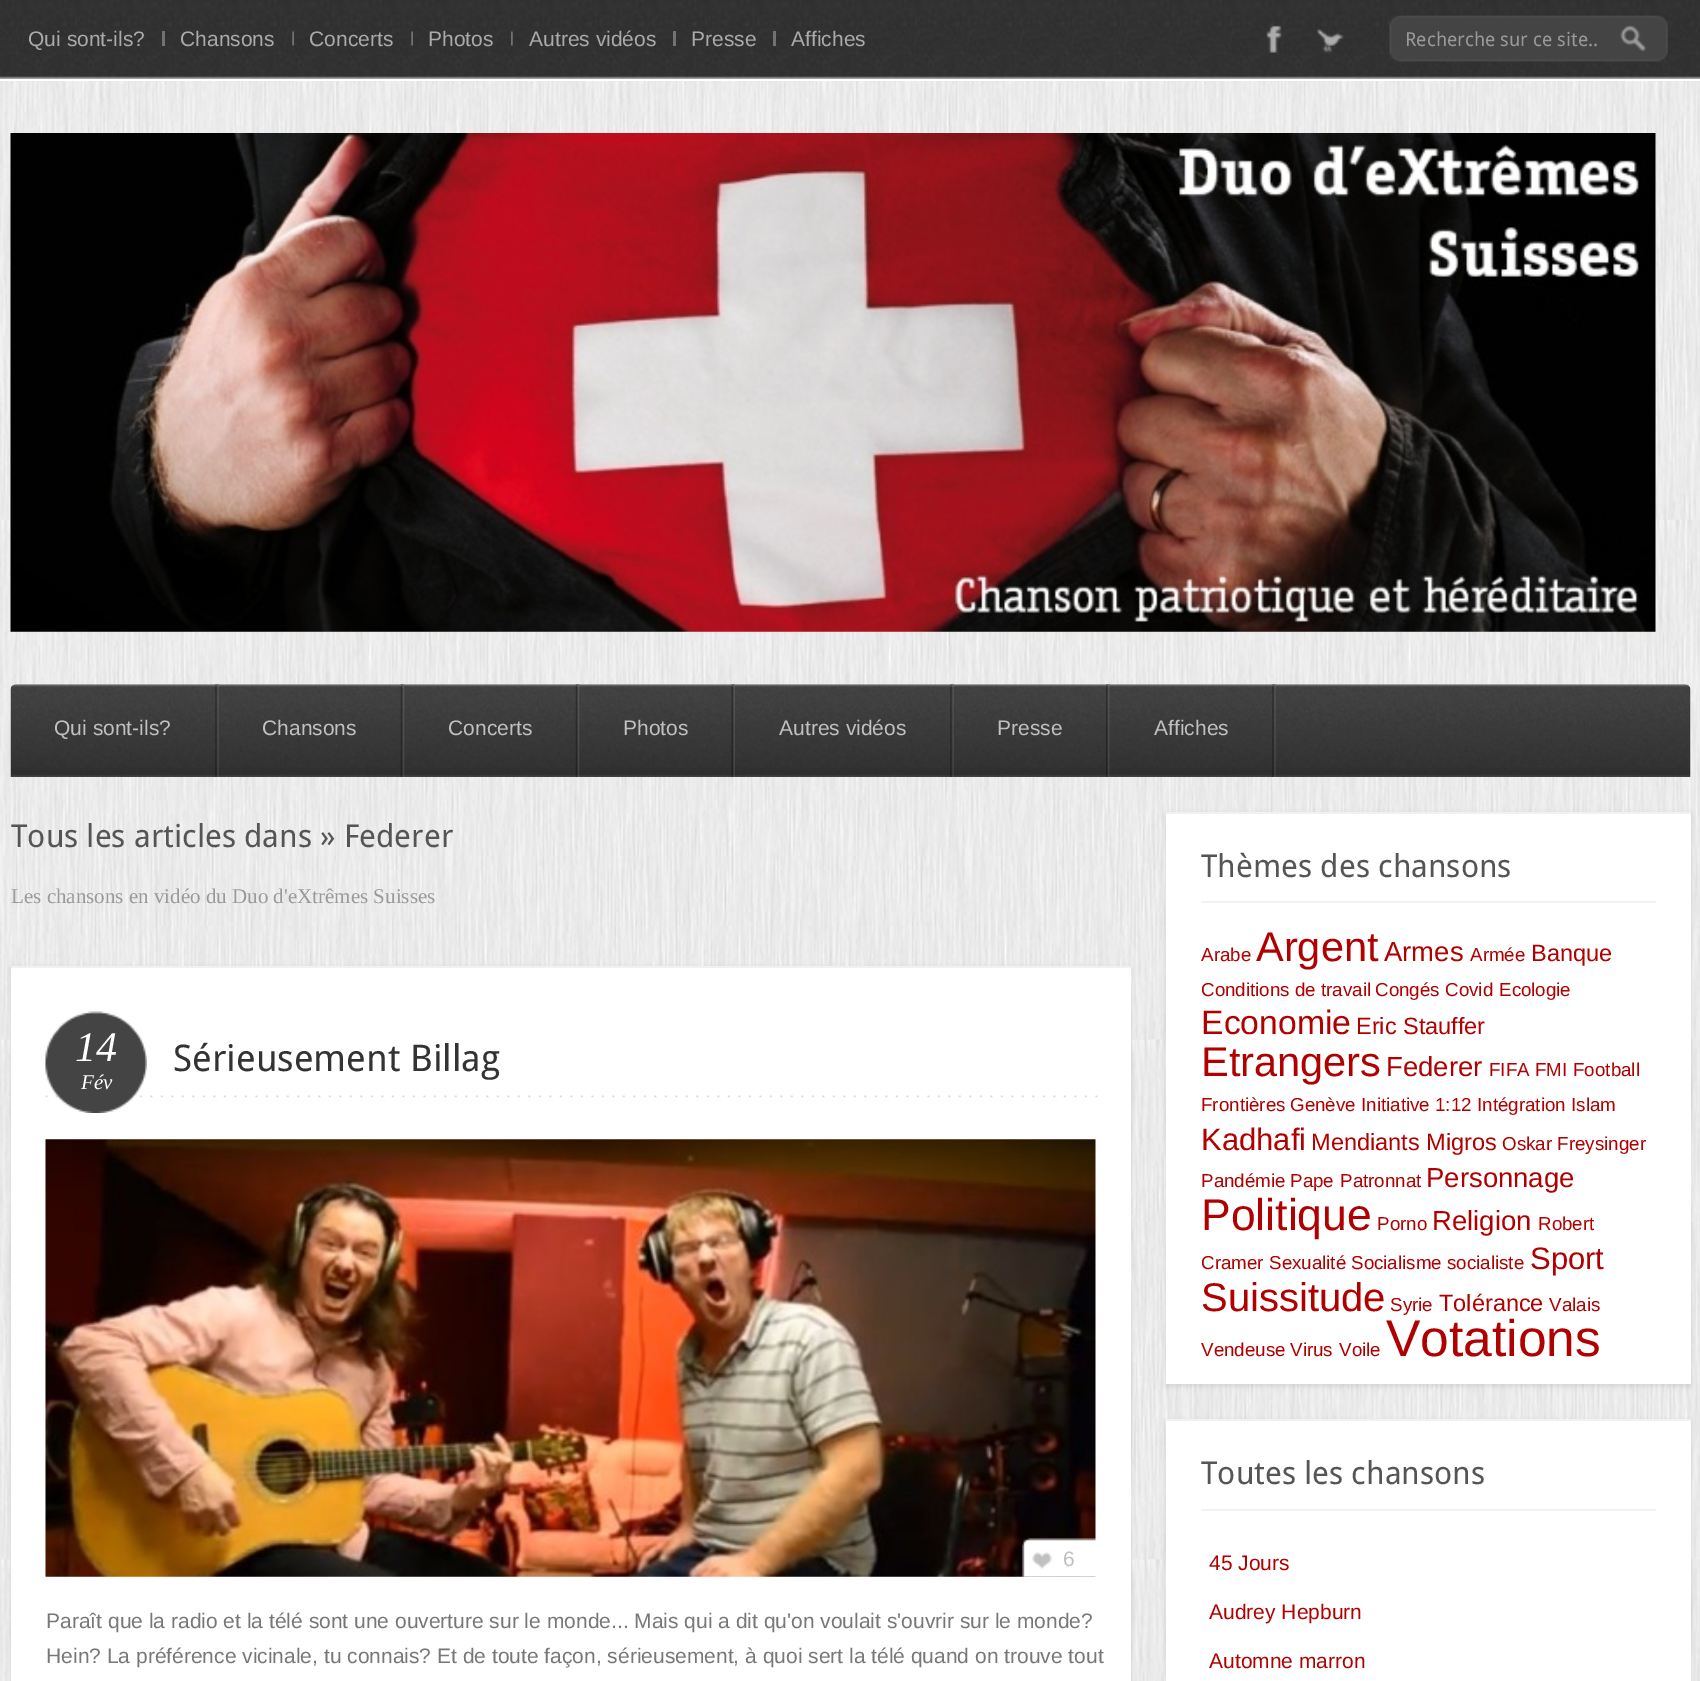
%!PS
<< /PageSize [1700 1681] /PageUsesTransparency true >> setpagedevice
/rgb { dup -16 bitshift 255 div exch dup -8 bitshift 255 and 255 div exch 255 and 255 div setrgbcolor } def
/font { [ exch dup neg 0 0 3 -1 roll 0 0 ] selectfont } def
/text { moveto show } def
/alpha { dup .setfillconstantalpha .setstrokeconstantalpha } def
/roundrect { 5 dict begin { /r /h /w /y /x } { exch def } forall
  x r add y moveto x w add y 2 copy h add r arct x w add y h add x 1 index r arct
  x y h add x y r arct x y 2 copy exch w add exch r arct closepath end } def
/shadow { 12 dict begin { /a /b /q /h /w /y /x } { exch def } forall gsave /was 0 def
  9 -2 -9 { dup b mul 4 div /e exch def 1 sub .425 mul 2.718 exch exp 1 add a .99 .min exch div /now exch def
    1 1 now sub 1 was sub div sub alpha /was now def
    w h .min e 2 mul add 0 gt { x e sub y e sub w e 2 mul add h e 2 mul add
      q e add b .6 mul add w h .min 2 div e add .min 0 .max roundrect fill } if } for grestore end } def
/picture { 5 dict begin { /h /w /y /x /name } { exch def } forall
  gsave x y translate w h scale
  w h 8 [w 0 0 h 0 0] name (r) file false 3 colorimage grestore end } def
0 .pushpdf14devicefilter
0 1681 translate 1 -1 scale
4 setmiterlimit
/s1 { /LiberationSans-Regular 21 font 16#AAAAAA rgb } def
/s2 { /DroidSans-Regular 19.25 font 16#999999 rgb } def
/s3 { /LiberationSans-Regular 21 font 16#C0C0C0 rgb } def
/s4 { /DroidSans-Regular 31.5 font 16#555555 rgb } def
/s5 { /LiberationSerif-Regular 21 font 16#999999 rgb } def
/s6 { /LiberationSerif-Italic 42 font 16#FFFFFF rgb } def
/s7 { /LiberationSerif-Italic 21 font 16#FFFFFF rgb } def
/s8 { /DroidSans-Regular 36.75 font 16#333333 rgb } def
/s9 { /LiberationSans-Regular 21 font 16#777777 rgb } def
/s10 { /LiberationSans-Regular 18.75 font 16#B00000 rgb } def
/s11 { /LiberationSans-Regular 41.5 font 16#B00000 rgb } def
/s12 { /LiberationSans-Regular 27.5 font 16#B00000 rgb } def
/s13 { /LiberationSans-Regular 23.5 font 16#B00000 rgb } def
/s14 { /LiberationSans-Regular 33.75 font 16#B00000 rgb } def
/s15 { /LiberationSans-Regular 31 font 16#B00000 rgb } def
/s16 { /LiberationSans-Regular 44.5 font 16#B00000 rgb } def
/s17 { /LiberationSans-Regular 40 font 16#B00000 rgb } def
/s18 { /LiberationSans-Regular 51.5 font 16#B00000 rgb } def
/s19 { /LiberationSans-Regular 21 font 16#B00000 rgb } def
16#FFFFFF rgb
0 0 1700 1681 rectfill
(pic1.raw) 0 78 1700 1603 picture
(pic2.raw) 0 0 1700 79 picture
0 79 1700 2 rectfill
s1
(Qui sont-ils?) 28 46 text
16#727272 rgb
162 31 3 15 rectfill
s1
(Chansons) 180 46 text
(pic3.raw) 292 31 2 15 picture
(Concerts) 309 46 text
(pic4.raw) 411 31 2 15 picture
(Photos) 428 46 text
(pic5.raw) 511 31 2 15 picture
(Autres vidéos) 529 46 text
16#727272 rgb
673 31 3 15 rectfill
s1
(Presse) 691 46 text
16#727272 rgb
773 31 3 15 rectfill
s1
(Affiches) 791 46 text
(pic6.raw) 1266 25 16 28 picture
(pic7.raw) 1317 29 27 24 picture
(pic8.raw) 1389 15 279 47 picture
s2
(Recherche sur ce site..) 1405 46 text
(pic9.raw) 10 133 1646 499 picture
(pic10.raw) 10 684 1681 93 picture
(pic11.raw) 215 684 4 93 picture
s3
(Qui sont-ils?) 54 735 text
(pic12.raw) 400 684 5 93 picture
(Chansons) 262 735 text
(pic13.raw) 575 684 5 93 picture
(Concerts) 448 735 text
(pic14.raw) 731 684 4 93 picture
(Photos) 623 735 text
(pic15.raw) 950 684 4 93 picture
(Autres vidéos) 779 735 text
(pic16.raw) 1106 684 4 93 picture
(Presse) 997 735 text
(pic17.raw) 1272 684 4 93 picture
(Affiches) 1154 735 text
s4
(Tous les articles dans » Federer) 11 847 text
s5
(Les chansons en vidéo du Duo d'eXtrêmes Suisses) 11 903 text
16#000000 rgb
11 968 1120 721 0 2.5 0.1 shadow
16#FFFFFF rgb
11 968 1120 713 rectfill
16#F1F1F1 rgb
11 966 1120 2 rectfill
(pic19.raw) 45 1095 1053 3 picture
(pic18.raw) 45 1011 102 102 picture
s6
(14) 75 1061 text
s7
(Fév) 81 1089 text
s8
(Sérieusement Billag) 173 1071 text
(pic20.raw) 45 1139 1051 438 picture
(pic21.raw) 1022 1538 74 39 picture
s3
(6) 1063 1566 text
s9
(Paraît que la radio et la télé sont une ouverture sur le monde... Mais qui a dit qu'on voulait s'ouvrir sur le monde?) 46 1628 text
(Hein? La préférence vicinale, tu connais? Et de toute façon, sérieusement, à quoi sert la télé quand on trouve tout) 46 1663 text
16#000000 rgb
1166 814 525 572 0 2.5 0.1 shadow
16#FFFFFF rgb
1166 814 525 570 rectfill
16#F1F1F1 rgb
1166 812 525 2 rectfill
16#F2F2F2 rgb
1201 901 455 2 rectfill
s4
(Thèmes des chansons) 1201 877 text
s10
(Arabe) 1201 961 text
s11
(Argent) 1256 961 text
s12
(Armes) 1384 961 text
s10
(Armée) 1470 961 text
s13
(Banque) 1531 961 text
s10
(Conditions de travail) 1201 996 text
(Congés) 1375 996 text
(Covid) 1445 996 text
(Ecologie) 1499 996 text
s14
(Economie) 1201 1034 text
s13
(Eric Stauffer) 1356 1034 text
s11
(Etrangers) 1201 1076 text
s12
(Federer) 1386 1076 text
s10
(FIFA) 1489 1076 text
(FMI) 1535 1076 text
(Football) 1573 1076 text
(Frontières) 1201 1111 text
(Genève) 1290 1111 text
(Initiative 1:12) 1361 1111 text
(Intégration) 1477 1111 text
(Islam) 1571 1111 text
s15
(Kadhafi) 1201 1150 text
s13
(Mendiants) 1311 1150 text
(Migros) 1426 1150 text
s10
(Oskar Freysinger) 1502 1150 text
(Pandémie) 1201 1187 text
(Pape) 1290 1187 text
(Patronnat) 1340 1187 text
s12
(Personnage) 1426 1187 text
s16
(Politique) 1201 1230 text
s10
(Porno) 1377 1230 text
s12
(Religion) 1432 1230 text
s10
(Robert) 1538 1230 text
(Cramer) 1201 1269 text
(Sexualité) 1269 1269 text
(Socialisme) 1351 1269 text
(socialiste) 1447 1269 text
s15
(Sport) 1530 1269 text
s17
(Suissitude) 1201 1311 text
s10
(Syrie) 1390 1311 text
s13
(Tolérance) 1439 1311 text
s10
(Valais) 1549 1311 text
(Vendeuse) 1201 1356 text
(Virus) 1290 1356 text
(Voile) 1339 1356 text
s18
(Votations) 1386 1356 text
16#000000 rgb
1166 1421 525 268 0 2.5 0.1 shadow
16#FFFFFF rgb
1166 1421 525 260 rectfill
16#F1F1F1 rgb
1166 1419 525 2 rectfill
16#F2F2F2 rgb
1201 1509 455 2 rectfill
s4
(Toutes les chansons) 1201 1484 text
s19
(45 Jours) 1209 1570 text
(Audrey Hepburn) 1209 1619 text
(Automne marron) 1209 1668 text
.poppdf14devicefilter showpage
